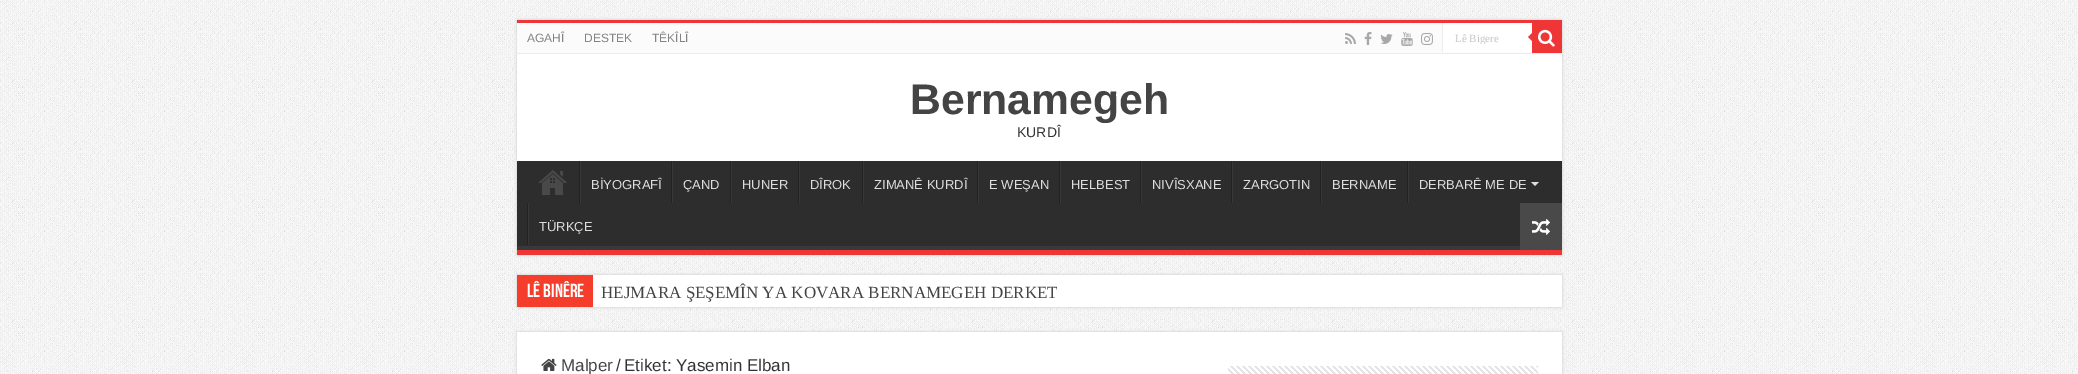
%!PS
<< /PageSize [2078 374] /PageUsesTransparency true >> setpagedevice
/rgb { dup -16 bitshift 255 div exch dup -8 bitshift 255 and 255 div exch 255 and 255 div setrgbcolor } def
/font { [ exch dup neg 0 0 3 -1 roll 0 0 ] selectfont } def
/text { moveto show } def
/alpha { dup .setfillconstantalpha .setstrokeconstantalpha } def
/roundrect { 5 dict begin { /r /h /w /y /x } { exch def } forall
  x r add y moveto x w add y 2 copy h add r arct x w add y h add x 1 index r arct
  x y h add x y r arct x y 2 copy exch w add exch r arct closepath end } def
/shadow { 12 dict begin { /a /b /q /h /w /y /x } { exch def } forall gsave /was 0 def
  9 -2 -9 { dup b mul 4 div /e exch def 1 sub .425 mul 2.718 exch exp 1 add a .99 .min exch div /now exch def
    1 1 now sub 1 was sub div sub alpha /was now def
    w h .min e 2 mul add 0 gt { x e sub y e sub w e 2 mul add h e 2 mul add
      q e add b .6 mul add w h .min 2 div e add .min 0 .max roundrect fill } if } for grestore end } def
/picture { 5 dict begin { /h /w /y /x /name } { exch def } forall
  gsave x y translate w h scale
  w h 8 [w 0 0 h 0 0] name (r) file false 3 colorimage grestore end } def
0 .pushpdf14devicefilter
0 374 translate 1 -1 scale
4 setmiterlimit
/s1 { /LiberationSans-Regular 12 font 16#838383 rgb } def
/s2 { /LiberationSerif-Regular 11 font 16#C5C5C5 rgb } def
/s3 { /LiberationSans-Bold 42.75 font 16#444444 rgb } def
/s4 { /LiberationSans-Regular 14 font 16#333333 rgb } def
/s5 { /LiberationSans-Regular 13 font 16#DDDDDD rgb } def
/s6 { /BebasNeue-Bold 19 font 16#FFFFFF rgb } def
/s7 { /LiberationSerif-Regular 17 font 16#444444 rgb } def
/s8 { /LiberationSans-Regular 17 font 16#444444 rgb } def
/s9 { /LiberationSans-Regular 17 font 16#333333 rgb } def
16#FFFFFF rgb
0 0 2078 374 rectfill
(pic1.raw) 0 0 2078 374 picture
16#CACACA rgb
517 20 1045 235 0 1.5 1 shadow
16#FFFFFF rgb
517 54 1045 107 rectfill
16#EF3636 rgb
517 20 1045 3 rectfill
16#FBFBFB rgb
517 23 1015 30 rectfill
16#ECECEC rgb
517 53 1045 1 rectfill
s1
(AGAHÎ) 527 42 text
(DESTEK) 584 42 text
(TÊKÎLÎ) 652 42 text
(pic2.raw) 1345 33 11 11 picture
(pic3.raw) 1364 32 8 13 picture
(pic4.raw) 1380 34 13 10 picture
(pic5.raw) 1401 32 12 14 picture
(pic6.raw) 1421 33 12 12 picture
16#FFFFFF rgb
1443 23 89 29 rectfill
16#ECECEC rgb
1442 23 1 29 rectfill
gsave
1455 32 65 12 rectclip
s2
(Lê Bigere) 1455 42 text
grestore
16#EF3636 rgb
1532 23 30 30 rectfill
(pic7.raw) 1538 29 17 18 picture
1532 33 moveto 1532 41 lineto 1528 37 lineto closepath fill
s3
(Bernamegeh) 910 114 text
s4
(KURDÎ) 1017 137 text
16#2D2D2D rgb
517 161 1045 85 rectfill
gsave
517 161 1045 89 rectclip
16#393939 rgb
418 62 moveto 1661 62 lineto 1661 349 lineto 418 349 lineto closepath 516 155 moveto 1561 155 lineto 1562 155 1562 155 1562 156 curveto 1562 245 lineto 1562 246 1562 246 1561 246 curveto 516 246 lineto 515 246 515 246 515 245 curveto 515 156 lineto 515 155 515 155 516 155 curveto closepath eofill
grestore
16#EF3636 rgb
517 250 1045 5 rectfill
(pic8.raw) 538 170 29 25 picture
16#222222 rgb
579 161 1 42 rectfill
16#383838 rgb
580 161 1 42 rectfill
s5
(BİYOGRAFÎ) 591 189 text
16#222222 rgb
671 161 1 42 rectfill
16#383838 rgb
672 161 1 42 rectfill
s5
(ÇAND) 683 189 text
16#222222 rgb
730 161 1 42 rectfill
16#383838 rgb
731 161 1 42 rectfill
s5
(HUNER) 742 189 text
16#222222 rgb
798 161 1 42 rectfill
16#383838 rgb
799 161 1 42 rectfill
s5
(DÎROK) 810 189 text
16#222222 rgb
862 161 1 42 rectfill
16#383838 rgb
863 161 1 42 rectfill
s5
(ZIMANÊ KURDÎ) 874 189 text
16#222222 rgb
977 161 1 42 rectfill
16#383838 rgb
978 161 1 42 rectfill
s5
(E WEŞAN) 989 189 text
16#222222 rgb
1059 161 1 42 rectfill
16#383838 rgb
1060 161 1 42 rectfill
s5
(HELBEST) 1071 189 text
16#222222 rgb
1140 161 1 42 rectfill
16#383838 rgb
1141 161 1 42 rectfill
s5
(NIVÎSXANE) 1152 189 text
16#222222 rgb
1231 161 1 42 rectfill
16#383838 rgb
1232 161 1 42 rectfill
s5
(ZARGOTIN) 1243 189 text
16#222222 rgb
1320 161 1 42 rectfill
16#383838 rgb
1321 161 1 42 rectfill
s5
(BERNAME) 1332 189 text
16#222222 rgb
1407 161 1 42 rectfill
16#383838 rgb
1408 161 1 42 rectfill
s5
(DERBARÊ ME DE) 1419 189 text
1531 182 moveto 1539 182 lineto 1535 186 lineto closepath fill
16#222222 rgb
527 203 1 42 rectfill
16#383838 rgb
528 203 1 42 rectfill
s5
(TÜRKÇE) 539 231 text
16#494949 rgb
1520 203 42 47 rectfill
(pic9.raw) 1532 218 18 17 picture
16#CACACA rgb
517 275 1045 32 0 1.5 1 shadow
16#FFFFFF rgb
593 275 969 32 rectfill
16#F43D2A rgb
517 275 76 32 rectfill
s6
(LÊ BINÊRE) 527 297 text
s7
(HEJMARA ŞEŞEMÎN YA KOVARA BERNAMEGEH DERKET) 601 298 text
16#CACACA rgb
517 332 1045 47 0 1.5 1 shadow
16#FFFFFF rgb
517 332 1045 42 rectfill
(pic10.raw) 541 358 16 13 picture
s8
(Malper) 561 371 text
s9
(/) 616 371 text
(Etiket: Yasemin Elban) 624 371 text
(pic11.raw) 1228 366 310 8 picture
.poppdf14devicefilter showpage
